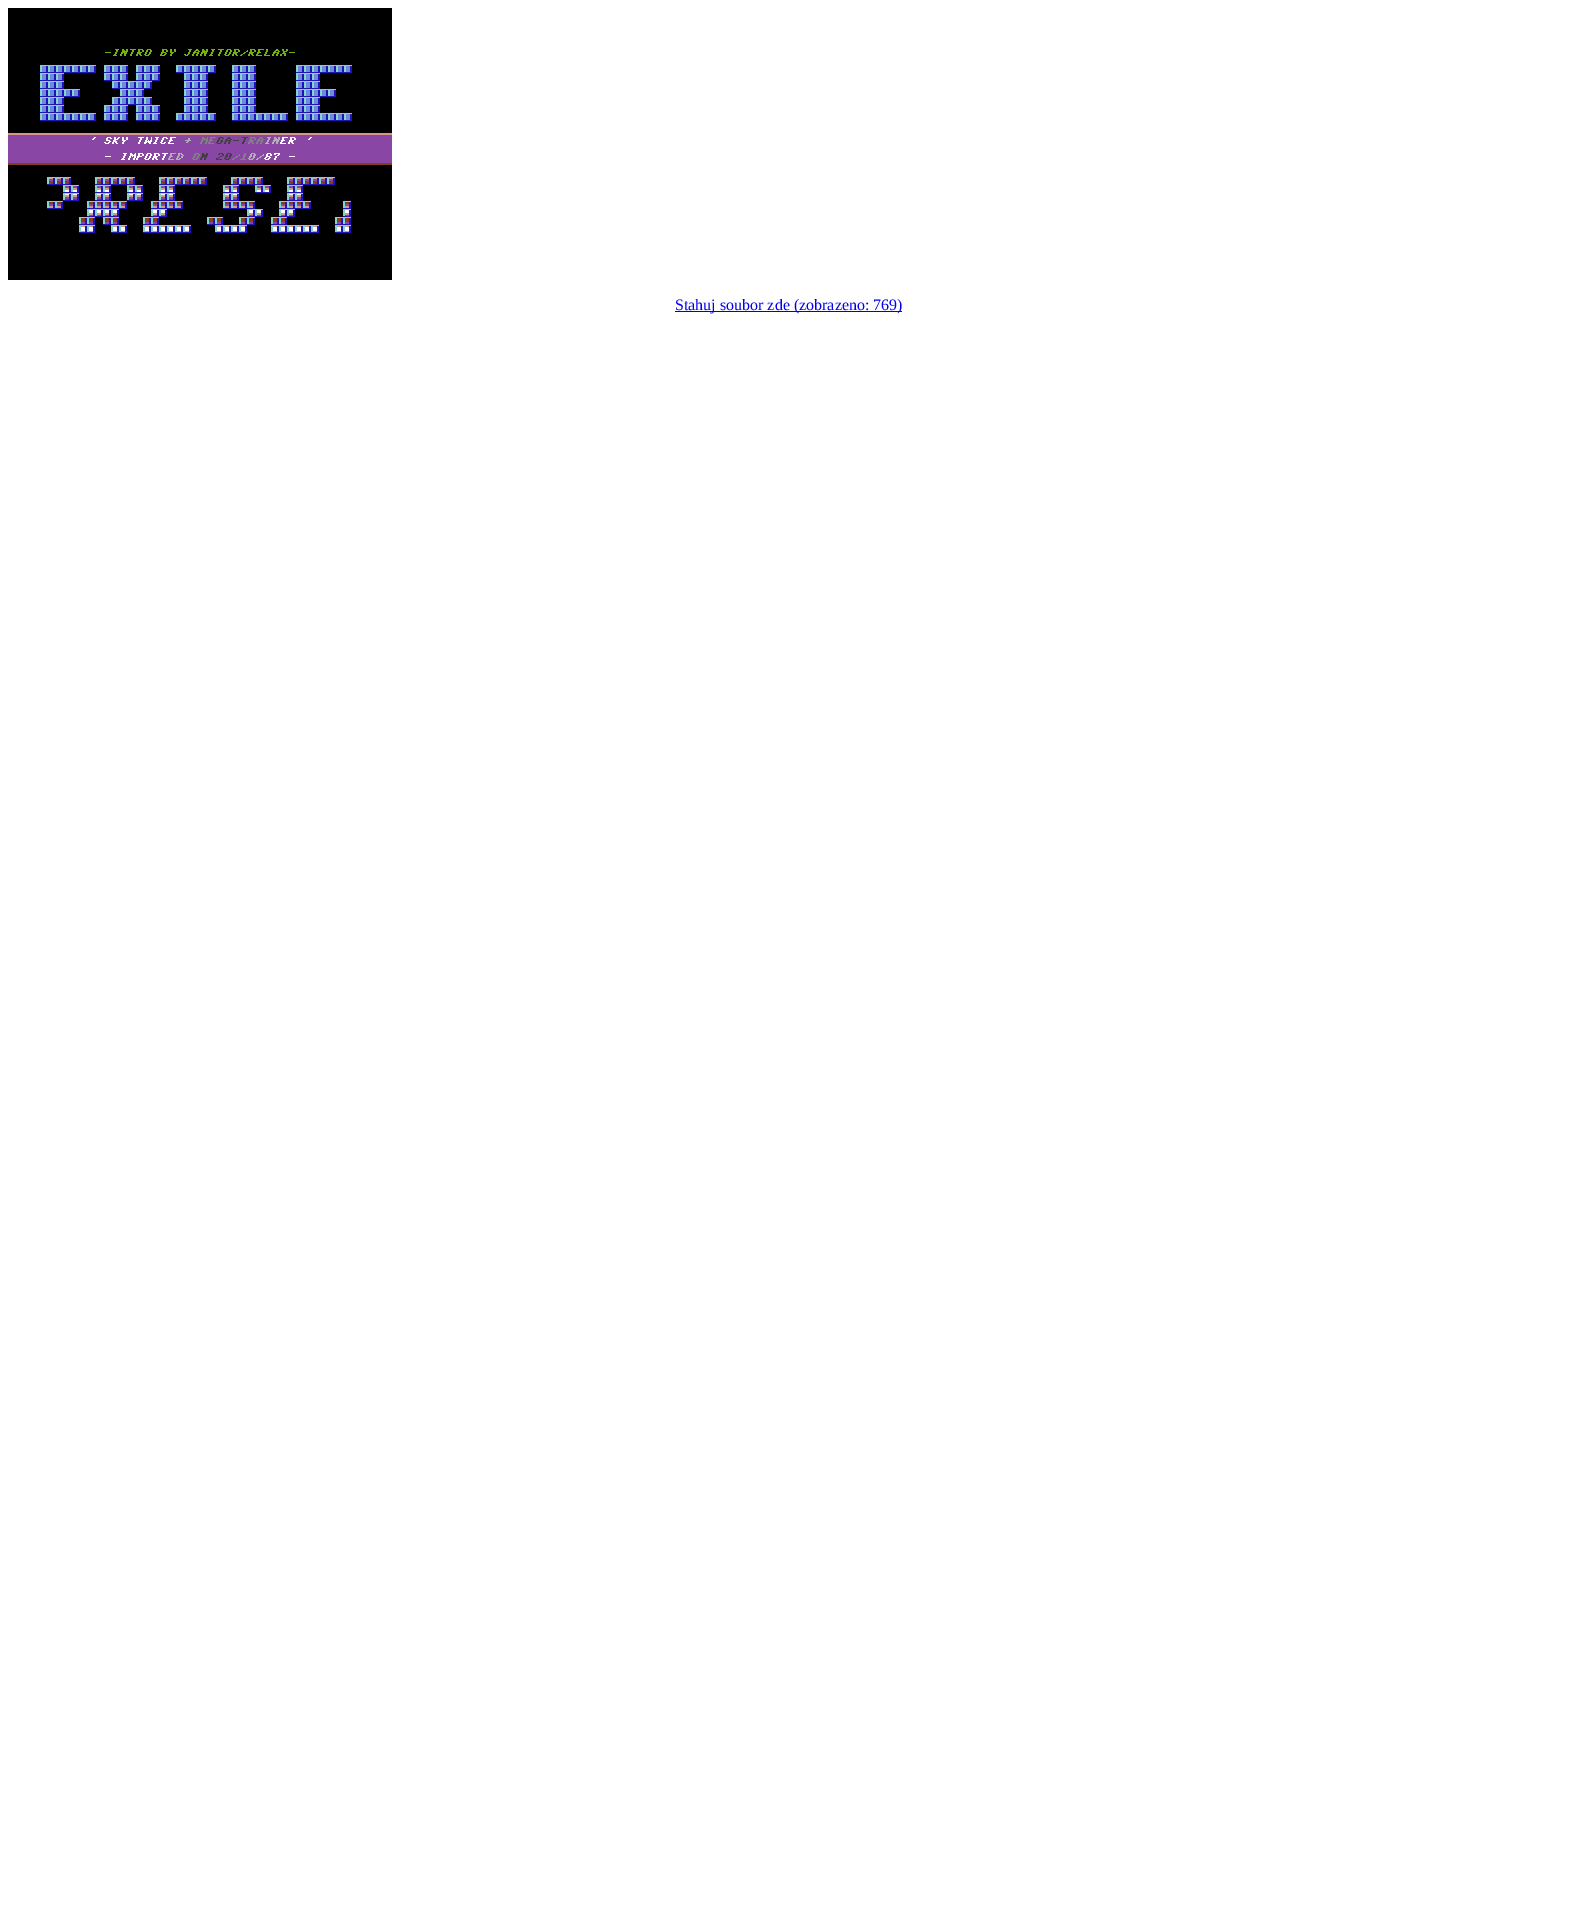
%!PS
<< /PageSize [1577 1910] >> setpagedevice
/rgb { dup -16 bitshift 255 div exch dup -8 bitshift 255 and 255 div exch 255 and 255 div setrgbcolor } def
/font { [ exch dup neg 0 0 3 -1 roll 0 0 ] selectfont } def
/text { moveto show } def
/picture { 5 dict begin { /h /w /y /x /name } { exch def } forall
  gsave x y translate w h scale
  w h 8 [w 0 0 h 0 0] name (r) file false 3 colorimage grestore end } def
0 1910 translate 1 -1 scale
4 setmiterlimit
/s1 { /LiberationSerif-Regular 16 font 16#0000EE rgb } def
16#FFFFFF rgb
0 0 1577 1910 rectfill
(pic1.raw) 8 8 384 272 picture
16#0000EE rgb
675 311 227 1 rectfill
s1
(Stahuj soubor zde \(zobrazeno: 769\)) 675 310 text
showpage
